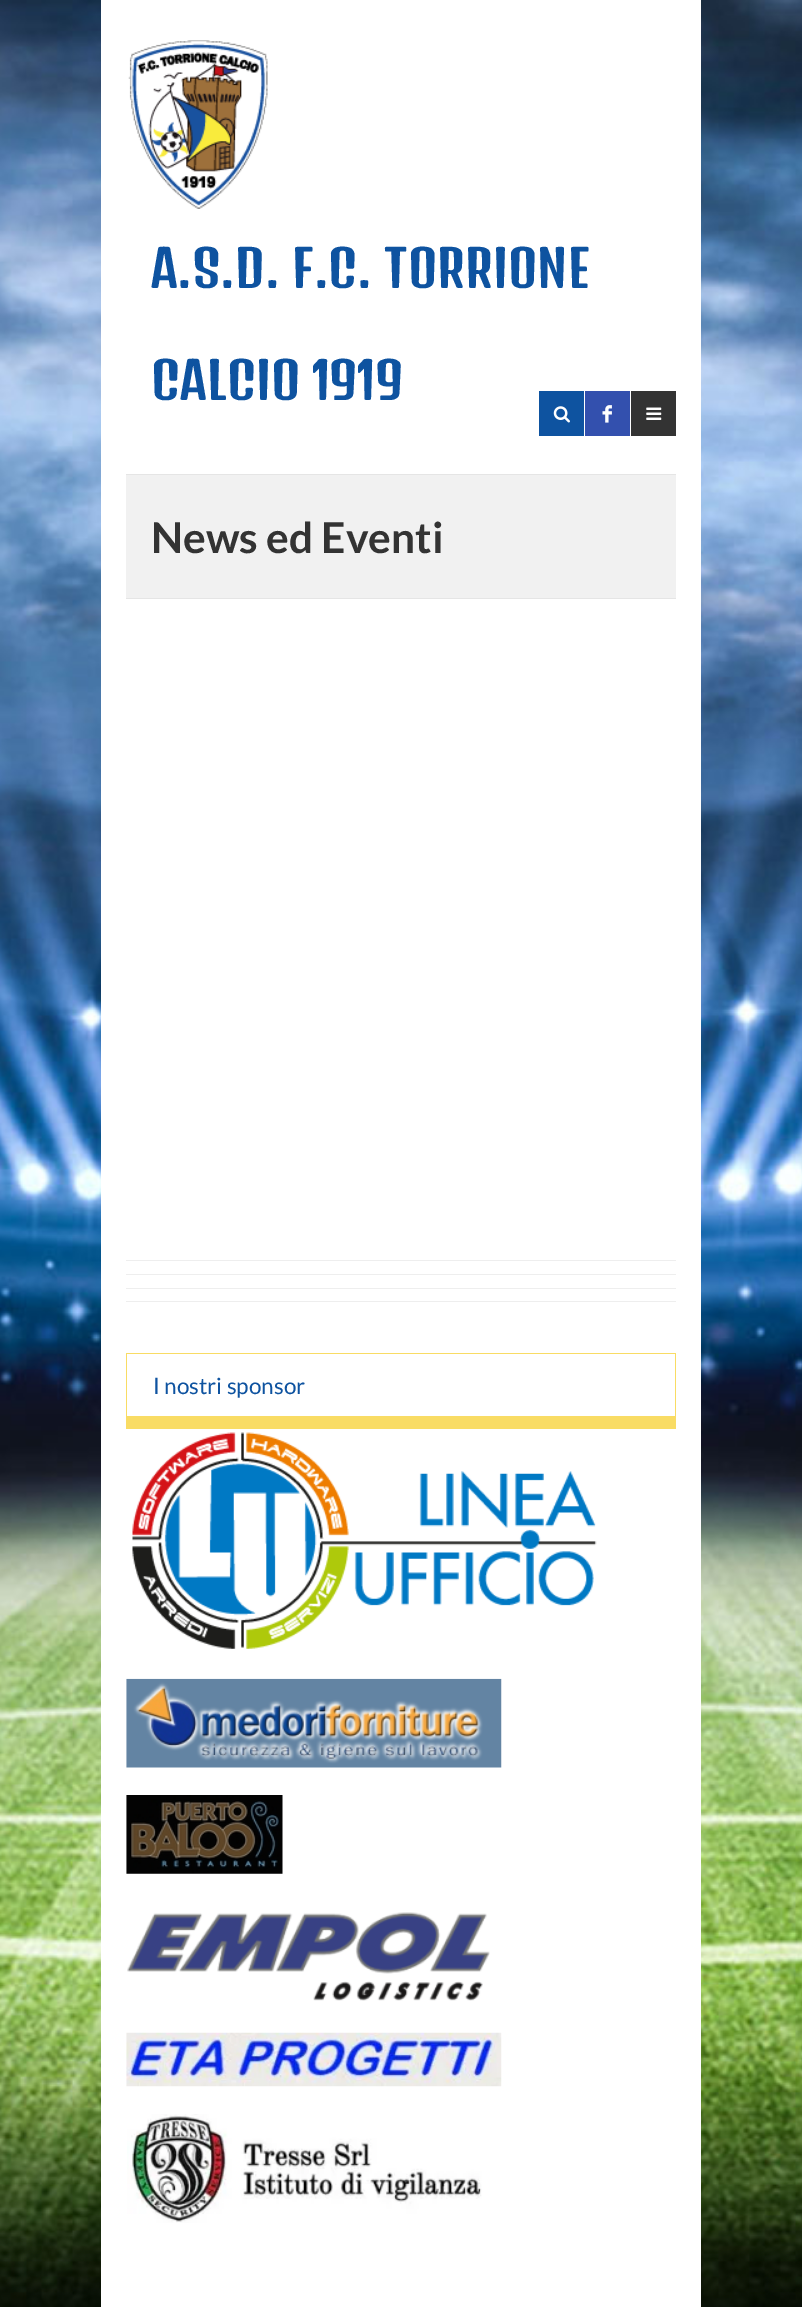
%!PS
<< /PageSize [802 2307] >> setpagedevice
/rgb { dup -16 bitshift 255 div exch dup -8 bitshift 255 and 255 div exch 255 and 255 div setrgbcolor } def
/font { [ exch dup neg 0 0 3 -1 roll 0 0 ] selectfont } def
/text { moveto show } def
/picture { 5 dict begin { /h /w /y /x /name } { exch def } forall
  gsave x y translate w h scale
  w h 8 [w 0 0 h 0 0] name (r) file false 3 colorimage grestore end } def
0 2307 translate 1 -1 scale
4 setmiterlimit
/s1 { /DenkOne-Regular 50 font 16#0E53A0 rgb } def
/s2 { /Lato-Bold 42.5 font 16#333333 rgb } def
/s3 { /Lato-Regular 22.5 font 16#0E53A0 rgb } def
16#FFFFFF rgb
0 0 802 2307 rectfill
(pic1.raw) 0 0 802 2307 picture
101 0 600 2307 rectfill
16#E5E5E5 rgb
126 474 550 1 rectfill
(pic2.raw) 128 40 140 169 picture
s1
(A.S.D. F.C. TORRIONE) 151 288 text
(CALCIO 1919) 151 400 text
539 391 45 45 rectfill
(pic3.raw) 553 406 17 17 picture
16#3350AE rgb
585 391 45 45 rectfill
(pic4.raw) 602 405 10 18 picture
16#333333 rgb
631 391 45 45 rectfill
(pic5.raw) 646 407 16 13 picture
16#F1F1F1 rgb
126 475 550 123 rectfill
16#E5E5E5 rgb
126 598 550 1 rectfill
s2
(News ed Eventi) 151 553 text
16#EEEEEE rgb
126 1260 550 1 rectfill
126 1274 550 1 rectfill
126 1288 550 1 rectfill
126 1301 550 1 rectfill
16#F9DC64 rgb
126 1353 550 1 rectfill
675 1353 1 63 rectfill
127 1416 549 13 rectfill
126 1353 1 76 rectfill
s3
(I nostri sponsor) 153 1394 text
(pic6.raw) 132 1432 465 217 picture
(pic7.raw) 126 1678 376 90 picture
(pic8.raw) 126 1795 157 79 picture
(pic9.raw) 127 1912 363 89 picture
(pic10.raw) 126 2032 376 55 picture
(pic11.raw) 127 2114 355 109 picture
showpage
